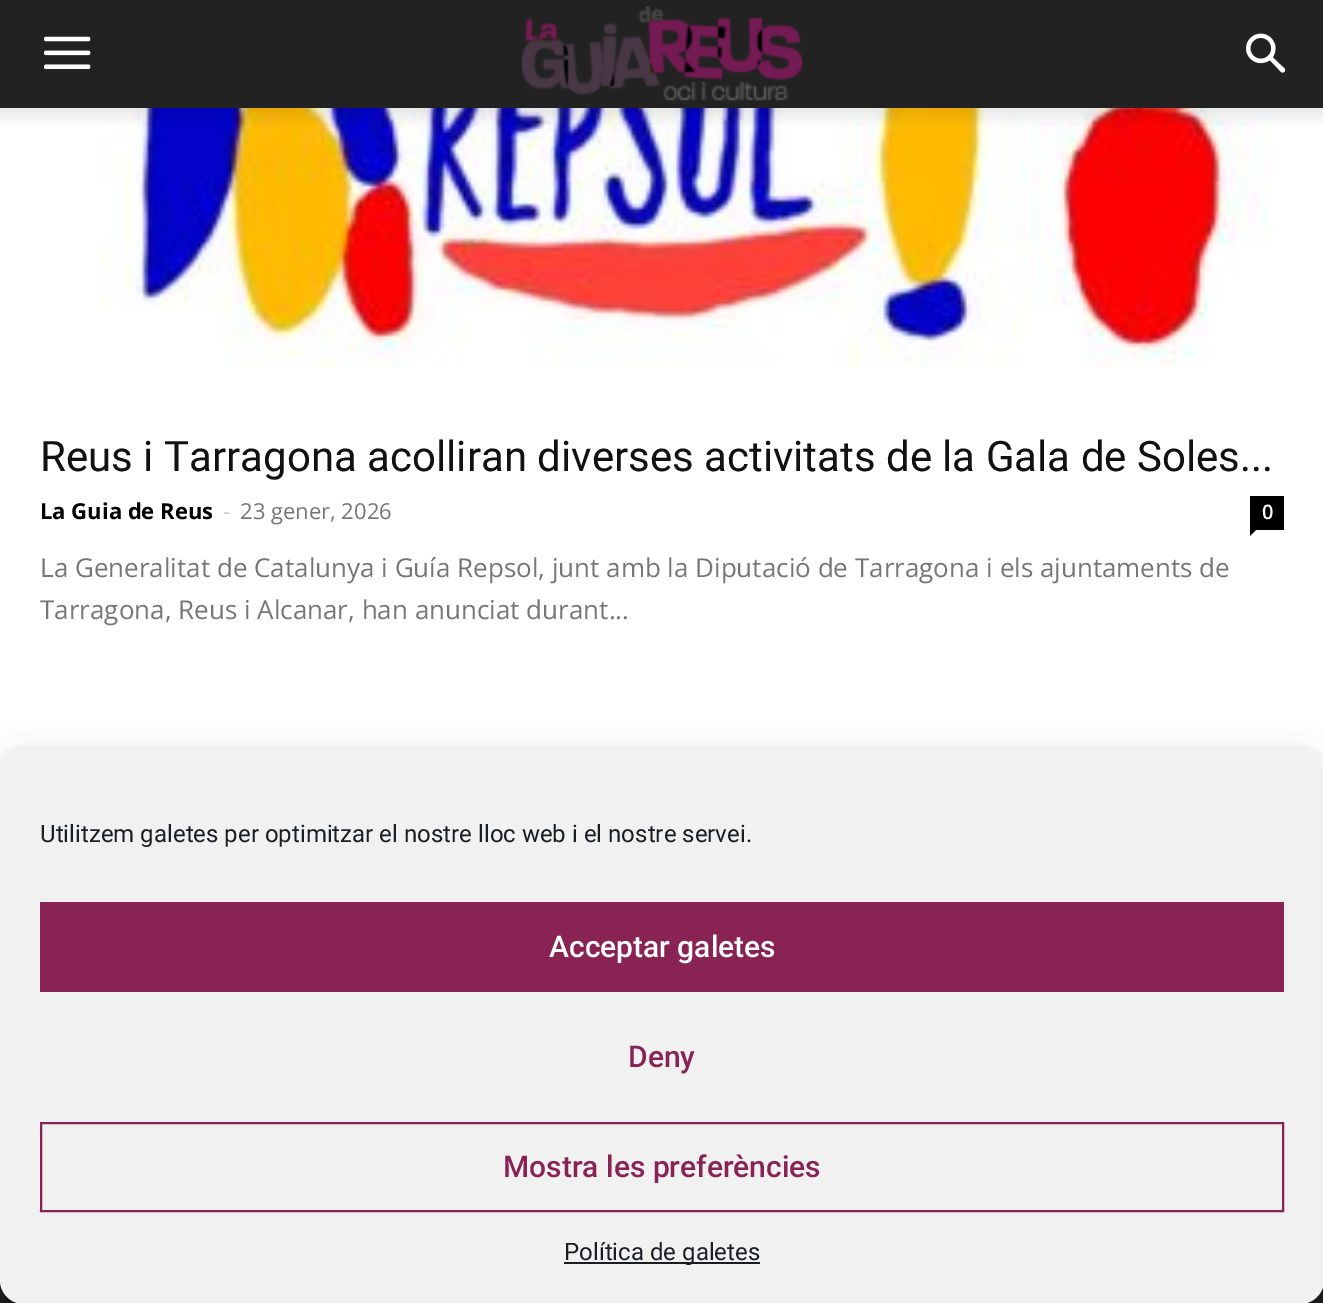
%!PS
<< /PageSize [1323 1303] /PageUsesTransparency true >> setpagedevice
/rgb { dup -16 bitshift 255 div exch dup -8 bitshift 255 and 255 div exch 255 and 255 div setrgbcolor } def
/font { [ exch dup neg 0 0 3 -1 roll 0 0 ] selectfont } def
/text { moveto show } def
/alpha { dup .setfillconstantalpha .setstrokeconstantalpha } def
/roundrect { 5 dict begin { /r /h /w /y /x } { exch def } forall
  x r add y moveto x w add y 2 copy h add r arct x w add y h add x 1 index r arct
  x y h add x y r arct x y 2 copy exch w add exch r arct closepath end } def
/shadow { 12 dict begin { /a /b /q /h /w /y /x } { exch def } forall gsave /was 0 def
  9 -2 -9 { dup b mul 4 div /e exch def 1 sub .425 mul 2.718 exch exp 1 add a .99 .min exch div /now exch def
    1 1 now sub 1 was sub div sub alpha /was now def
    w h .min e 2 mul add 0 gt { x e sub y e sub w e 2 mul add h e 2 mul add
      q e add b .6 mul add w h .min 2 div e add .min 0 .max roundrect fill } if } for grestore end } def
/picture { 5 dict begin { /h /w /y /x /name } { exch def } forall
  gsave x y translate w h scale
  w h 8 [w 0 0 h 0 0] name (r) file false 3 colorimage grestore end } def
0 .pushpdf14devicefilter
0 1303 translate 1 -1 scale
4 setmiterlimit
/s1 { /Roboto-Regular 42 font 16#111111 rgb } def
/s2 { /OpenSans-Bold 22 font 16#000000 rgb } def
/s3 { /OpenSans-Regular 22 font 16#CCCCCC rgb } def
/s4 { /OpenSans-Regular 22 font 16#767676 rgb } def
/s5 { /OpenSans-SemiBold 20 font 16#FFFFFF rgb } def
/s6 { /OpenSans-Regular 26 font 16#767676 rgb } def
/s7 { /Roboto-Regular 24 font 16#191E23 rgb } def
/s8 { /Roboto-Medium 30 font 16#FFFFFF rgb } def
/s9 { /Roboto-Medium 30 font 16#882354 rgb } def
16#FFFFFF rgb
0 0 1323 1303 rectfill
16#222222 rgb
0 0 1323 108 rectfill
(pic1.raw) 44 36 47 33 picture
(pic2.raw) 522 6 280 95 picture
(pic3.raw) 1246 33 40 40 picture
(pic5.raw) 100 108 1170 260 picture
(pic4.raw) 0 108 1323 17 picture
s1
(Reus i Tarragona acolliran diverses activitats de la Gala de Soles...) 40 471 text
s2
(La Guia de Reus) 40 519 text
s3
(-) 223 519 text
s4
(23 gener, 2026) 240 519 text
16#000000 rgb
1250 496 34 34 rectfill
s5
(0) 1262 519 text
16#000000 rgb
1250 530 moveto 1256 530 lineto 1250 536 lineto closepath fill
s6
(La Generalitat de Catalunya i Guía Repsol, junt amb la Diputació de Tarragona i els ajuntaments de) 40 577 text
(Tarragona, Reus i Alcanar, han anunciat durant...) 40 619 text
16#222222 rgb
0 1280 1323 23 rectfill
16#000000 rgb
0 758 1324 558 24 6 0.23 shadow
0 766 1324 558 24 20 0.19 shadow
16#F1F1F1 rgb
0 746 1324 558 24 roundrect fill
s7
(Utilitzem galetes per optimitzar el nostre lloc web i el nostre servei.) 40 842 text
16#882354 rgb
40 902 1244 90 rectfill
s8
(Acceptar galetes) 549 957 text
s9
(Deny) 628 1067 text
2 setlinewidth
41 1123 1242 88 rectstroke
(Mostra les preferències) 503 1177 text
16#191E23 rgb
564 1262 196 2 rectfill
s7
(Política de galetes) 564 1260 text
.poppdf14devicefilter showpage
